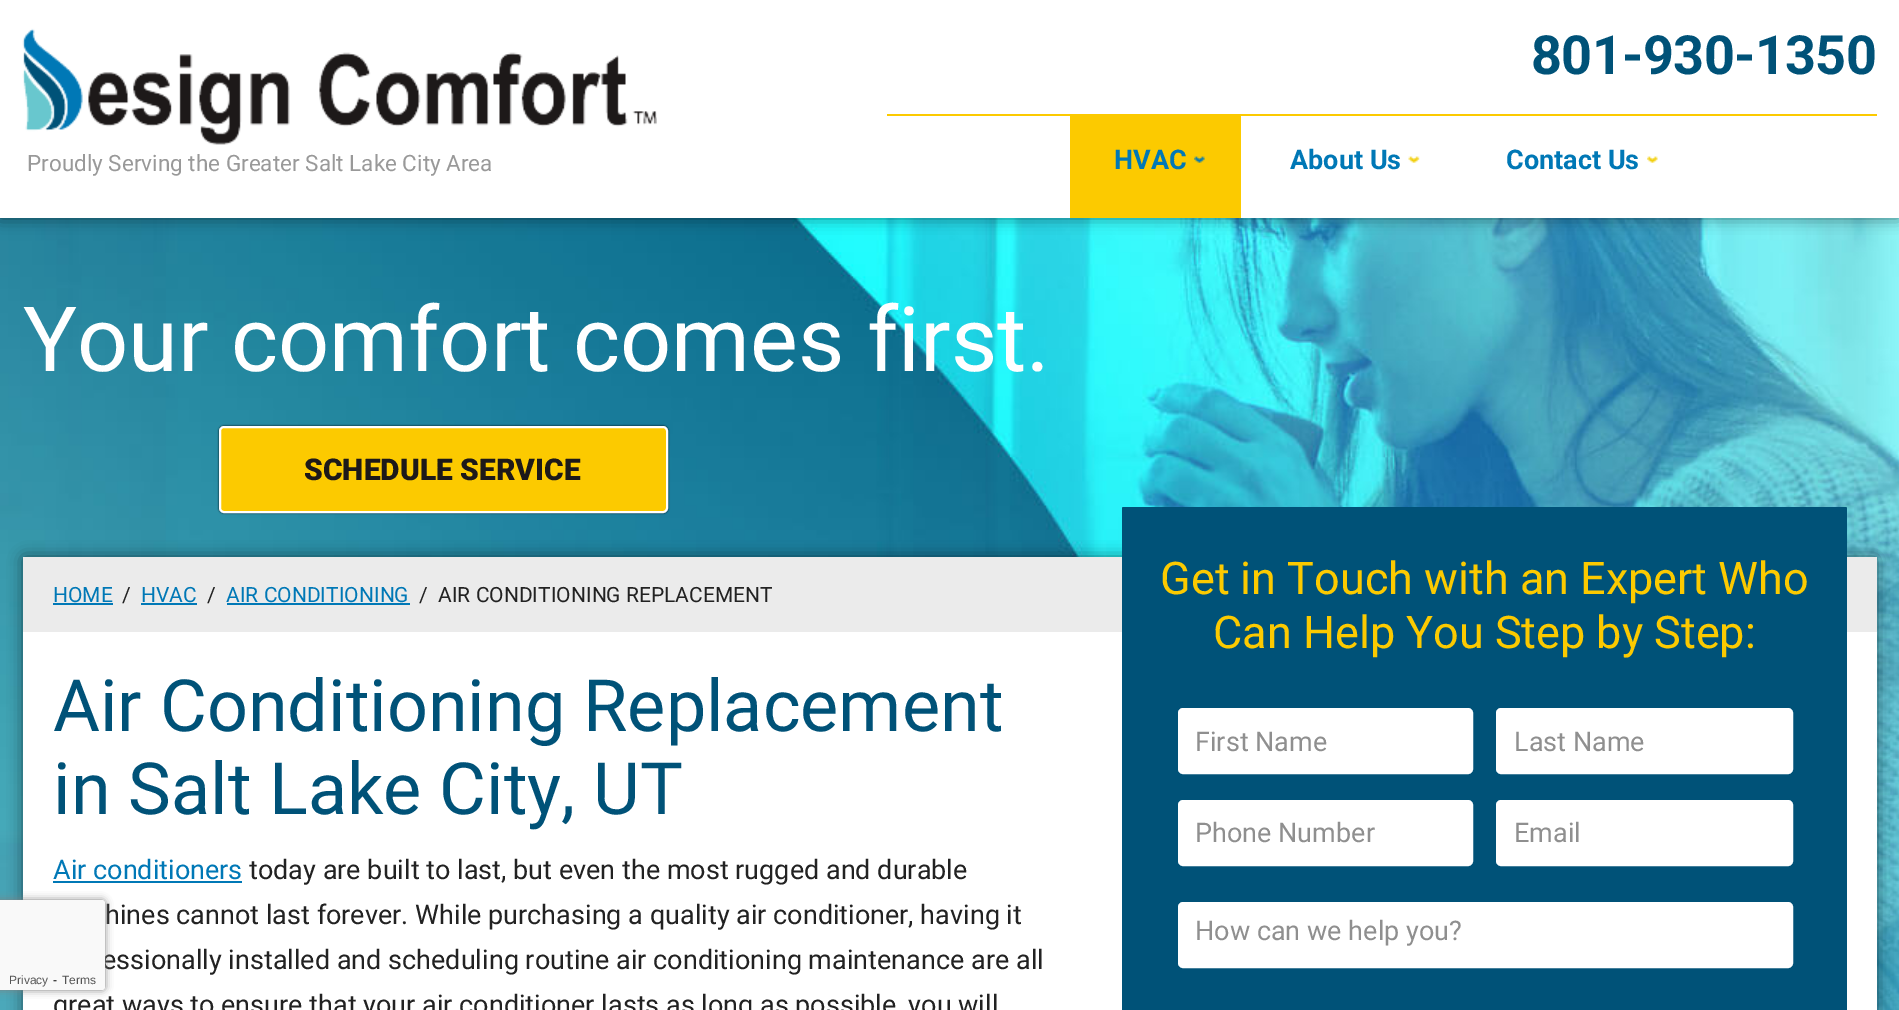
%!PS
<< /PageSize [1899 1010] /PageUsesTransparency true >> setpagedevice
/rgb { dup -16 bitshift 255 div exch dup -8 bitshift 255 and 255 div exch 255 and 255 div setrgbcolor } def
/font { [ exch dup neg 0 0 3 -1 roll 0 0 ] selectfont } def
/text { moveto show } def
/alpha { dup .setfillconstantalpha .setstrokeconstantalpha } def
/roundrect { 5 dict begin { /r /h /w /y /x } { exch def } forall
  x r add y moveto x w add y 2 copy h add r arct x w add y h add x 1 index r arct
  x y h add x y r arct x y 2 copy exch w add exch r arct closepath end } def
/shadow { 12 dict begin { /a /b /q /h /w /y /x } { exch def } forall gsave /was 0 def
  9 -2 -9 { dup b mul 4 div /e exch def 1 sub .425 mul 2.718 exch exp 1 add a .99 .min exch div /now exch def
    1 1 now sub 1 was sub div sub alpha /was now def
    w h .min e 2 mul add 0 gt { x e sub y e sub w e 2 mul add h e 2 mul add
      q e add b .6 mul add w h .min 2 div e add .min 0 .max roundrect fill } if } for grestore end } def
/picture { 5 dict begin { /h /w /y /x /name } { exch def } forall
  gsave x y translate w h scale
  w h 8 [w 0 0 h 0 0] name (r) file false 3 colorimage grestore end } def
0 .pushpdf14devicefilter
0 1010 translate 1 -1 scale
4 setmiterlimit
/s1 { /Roboto-Regular 22.5 font 16#999999 rgb } def
/s2 { /Roboto-Bold 27 font 16#0078B6 rgb } def
/s3 { /Roboto-Regular 90 font 16#FFFFFF rgb } def
/s4 { /Roboto-Black 30 font 16#1D1919 rgb } def
/s5 { /Roboto-Regular 21 font 16#0078B6 rgb } def
/s6 { /Roboto-Regular 21 font 16#222222 rgb } def
/s7 { /Roboto-Regular 45 font 16#FCCA00 rgb } def
/s8 { /Roboto-Regular 27 font 16#8F8F8F rgb } def
/s9 { /Roboto-Regular 72 font 16#005278 rgb } def
/s10 { /Roboto-Regular 27 font 16#0078B6 rgb } def
/s11 { /Roboto-Regular 27 font 16#222222 rgb } def
/s12 { /LiberationSans-Regular 12 font 16#555555 rgb } def
/s13 { /LiberationSans-Regular 12 font 16#000000 rgb } def
16#FFFFFF rgb
0 0 1899 1010 rectfill
(pic5.raw) 0 218 1899 792 picture
16#000000 rgb
0 0 1899 218 0 7.5 0.5 shadow
16#FFFFFF rgb
0 0 1899 218 rectfill
/Roboto-Bold 54 font
16#005278 rgb
1531 74 moveto -0.6 0 (801-930-1350) ashow
(pic1.raw) 22 28 635 117 picture
s1
(Proudly Serving the Greater Salt Lake City Area) 27 171 text
16#FCCA00 rgb
887 114 990 2 rectfill
1070 116 171 102 rectfill
s2
(HVAC) 1114 169 text
(pic2.raw) 1194 156 11 7 picture
(About Us) 1290 169 text
(pic3.raw) 1408 156 12 7 picture
(Contact Us) 1506 169 text
(pic4.raw) 1647 156 11 7 picture
s3
(Your comfort comes first.) 23 371 text
16#000000 rgb
219 426 449 87 5 1 1 shadow
16#FCCA00 rgb
220 427 447 85 4 roundrect gsave fill grestore
16#FFFFFF rgb
2 setlinewidth
stroke
s4
(SCHEDULE SERVICE) 304 480 text
16#000000 rgb
23 557 1854 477 1.5 7.5 0.5 shadow
16#FFFFFF rgb
23 632 1854 378 rectfill
16#EBEBEB rgb
23 557 1854 75 rectfill
s5
(HOME) 53 602 text
53 603 60 2 rectfill
s6
(/) 122 602 text
s5
(HVAC) 141 602 text
141 603 56 2 rectfill
s6
(/) 207 602 text
s5
(AIR CONDITIONING) 226 602 text
227 603 183 2 rectfill
s6
(/) 419 602 text
(AIR CONDITIONING REPLACEMENT) 438 602 text
16#005278 rgb
1122 507 725 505 1.5 roundrect fill
s7
(Get in Touch with an Expert Who) 1160 594 text
(Can Help You Step by Step:) 1213 648 text
16#FFFFFF rgb
1179 709 293 64 4 roundrect gsave fill grestore
stroke
s8
(First Name) 1195 751 text
16#FFFFFF rgb
1497 709 295 64 4 roundrect gsave fill grestore
stroke
s8
(Last Name) 1514 751 text
16#FFFFFF rgb
1179 801 293 64 4 roundrect gsave fill grestore
stroke
s8
(Phone Number) 1195 842 text
16#FFFFFF rgb
1497 801 295 64 4 roundrect gsave fill grestore
stroke
s8
(Email) 1514 842 text
16#FFFFFF rgb
1179 903 613 64 4 roundrect gsave fill grestore
stroke
s8
(How can we help you?) 1195 940 text
s9
(Air Conditioning Replacement) 53 731 text
(in Salt Lake City, UT) 53 814 text
s10
(Air conditioners) 53 879 text
53 881 189 2 rectfill
s11
(today are built to last, but even the most rugged and durable) 249 879 text
(hines cannot last forever. While purchasing a quality air conditioner, having it) 105 924 text
(essionally installed and scheduling routine air conditioning maintenance are all) 102 969 text
(great ways to ensure that your air conditioner lasts as long as possible, you will) 53 1014 text
16#808080 rgb
-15 900 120 90 3 4 1 shadow
gsave
-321 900 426 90 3 roundrect clip newpath
16#000000 rgb
-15 899 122 93 6 3 0.08 shadow
grestore
16#F9F9F9 rgb
0 900 moveto 102 900 lineto 103.5 900 105 901.5 105 903 curveto 105 987 lineto 105 988.5 103.5 990 102 990 curveto 0 990 lineto closepath fill
s12
(Privacy) 9 984 text
s13
(-) 53 984 text
s12
(Terms) 62 984 text
.poppdf14devicefilter showpage
